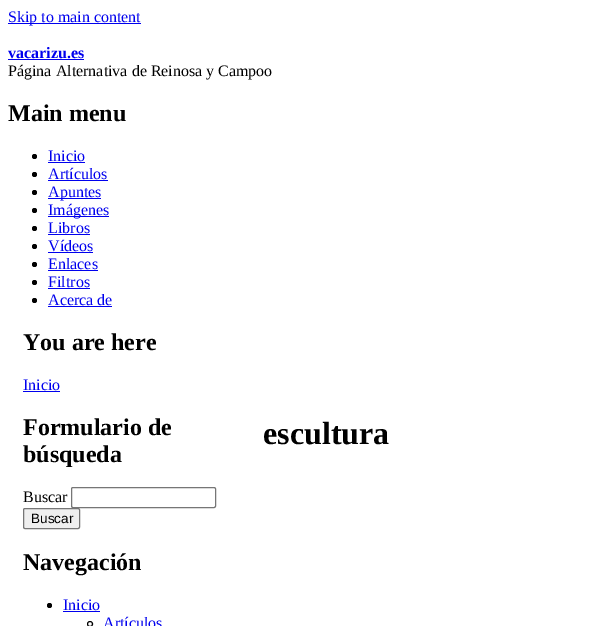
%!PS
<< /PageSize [596 626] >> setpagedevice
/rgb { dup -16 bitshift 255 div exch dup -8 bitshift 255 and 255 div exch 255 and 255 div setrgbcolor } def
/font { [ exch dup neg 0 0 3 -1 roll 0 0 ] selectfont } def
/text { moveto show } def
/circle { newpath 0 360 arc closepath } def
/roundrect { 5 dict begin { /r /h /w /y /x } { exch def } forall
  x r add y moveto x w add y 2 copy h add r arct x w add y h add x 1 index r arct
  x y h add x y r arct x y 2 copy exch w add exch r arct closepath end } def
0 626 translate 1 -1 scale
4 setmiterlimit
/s1 { /LiberationSerif-Regular 16 font 16#0000EE rgb } def
/s2 { /LiberationSerif-Bold 16 font 16#0000EE rgb } def
/s3 { /LiberationSerif-Regular 16 font 16#000000 rgb } def
/s4 { /LiberationSerif-Bold 24 font 16#000000 rgb } def
/s5 { /LiberationSans-Regular 13.5 font 16#000000 rgb } def
/s6 { /LiberationSerif-Bold 32 font 16#000000 rgb } def
16#FFFFFF rgb
0 0 596 626 rectfill
16#0000EE rgb
8 23 133 1 rectfill
s1
(Skip to main content) 8 22 text
s2
(vacarizu.es) 8 58 text
8 59 76 1 rectfill
s3
(Página Alternativa de Reinosa y Campoo) 8 76 text
s4
(Main menu) 8 121 text
34.5 156.5 2.5 circle fill
s1
(Inicio) 48 161 text
48 162 37 1 rectfill
16#000000 rgb
34.5 174.5 2.5 circle fill
s1
(Artículos) 48 179 text
48 180 60 1 rectfill
16#000000 rgb
34.5 192.5 2.5 circle fill
16#0000EE rgb
48 198 53 1 rectfill
(Apuntes) 48 197 text
16#000000 rgb
34.5 210.5 2.5 circle fill
16#0000EE rgb
48 216 61 1 rectfill
(Imágenes) 48 215 text
16#000000 rgb
34.5 228.5 2.5 circle fill
s1
(Libros) 48 233 text
48 234 42 1 rectfill
16#000000 rgb
34.5 246.5 2.5 circle fill
s1
(Vídeos) 48 251 text
48 252 45 1 rectfill
16#000000 rgb
34.5 264.5 2.5 circle fill
s1
(Enlaces) 48 269 text
48 270 50 1 rectfill
16#000000 rgb
34.5 282.5 2.5 circle fill
s1
(Filtros) 48 287 text
48 288 42 1 rectfill
16#000000 rgb
34.5 300.5 2.5 circle fill
s1
(Acerca de) 48 305 text
48 306 64 1 rectfill
s4
(You are here) 23 350 text
s1
(Inicio) 23 390 text
23 391 37 1 rectfill
s4
(Formulario de) 23 435 text
(búsqueda) 23 462 text
s3
(Buscar) 23 502 text
16#767676 rgb
71.5 487.5 144 20 1.5 roundrect stroke
16#EFEFEF rgb
23.5 508.5 56 20 1.5 roundrect gsave fill grestore
16#767676 rgb
stroke
s5
(Buscar) 31 523 text
s4
(Navegación) 23 570 text
49.5 605.5 2.5 circle fill
s1
(Inicio) 63 610 text
63 611 37 1 rectfill
16#000000 rgb
90 624 2.5 circle stroke
s1
(Artículos) 103 628 text
s6
(escultura) 263 444 text
showpage
